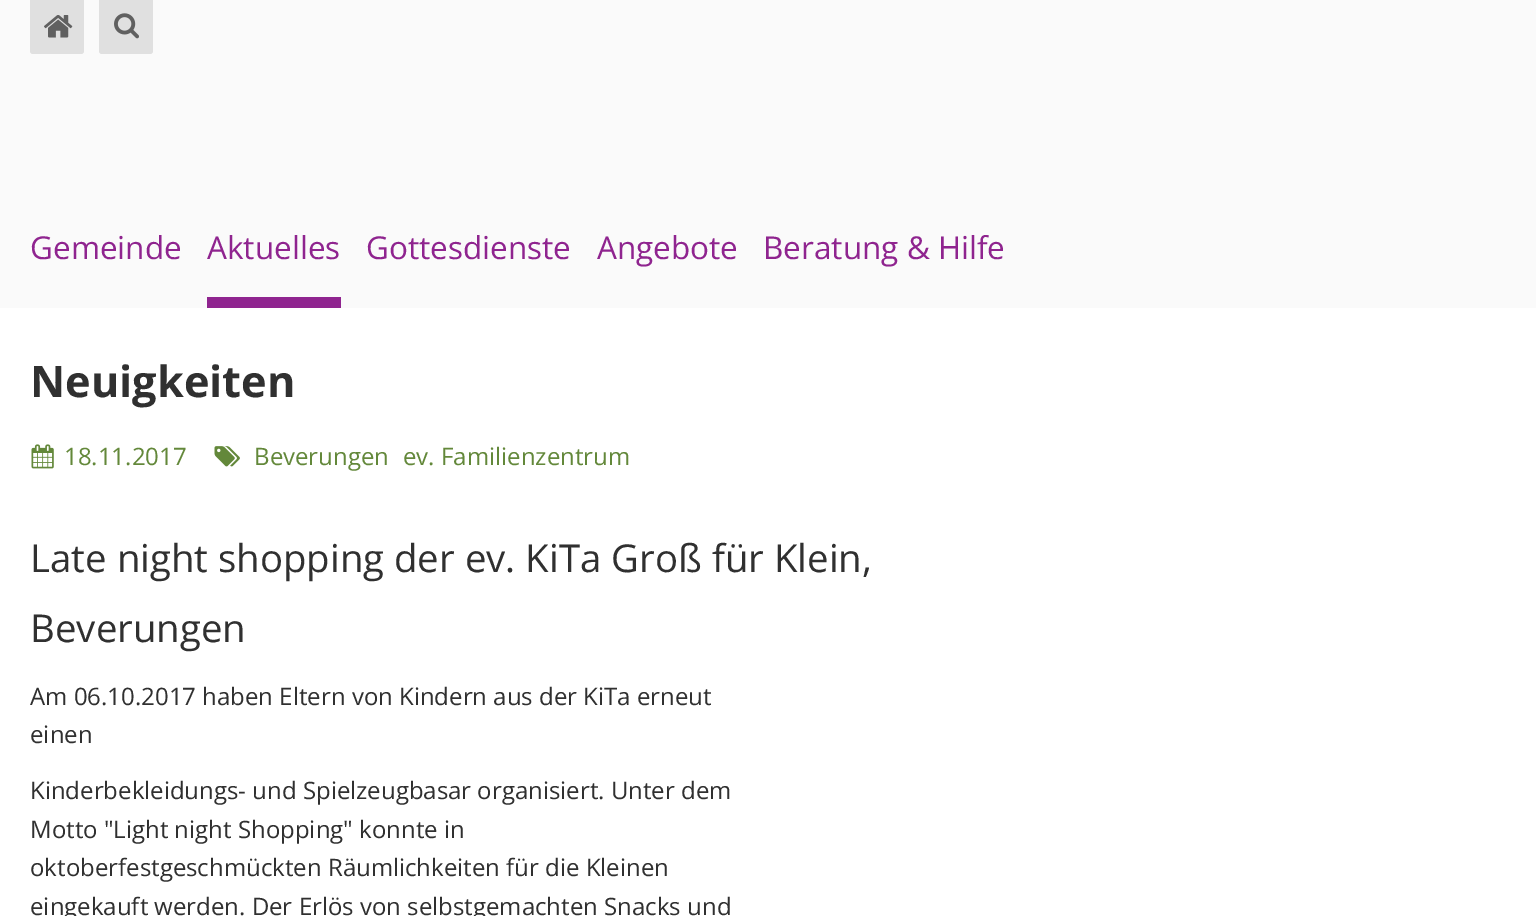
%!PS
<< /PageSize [1536 916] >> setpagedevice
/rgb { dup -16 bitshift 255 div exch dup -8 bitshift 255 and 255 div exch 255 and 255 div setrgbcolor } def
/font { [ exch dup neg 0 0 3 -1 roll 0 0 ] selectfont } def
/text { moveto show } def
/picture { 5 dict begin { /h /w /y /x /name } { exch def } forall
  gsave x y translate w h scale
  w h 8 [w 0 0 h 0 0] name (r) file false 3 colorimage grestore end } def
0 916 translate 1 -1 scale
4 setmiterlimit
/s1 { /OpenSans-Regular 31.5 font 16#8F248F rgb } def
/s2 { /OpenSans-Bold 43.25 font 16#303030 rgb } def
/s3 { /OpenSans-Regular 24 font 16#63883A rgb } def
/s4 { /OpenSans-Regular 38.4 font 16#303030 rgb } def
/s5 { /OpenSans-Regular 24 font 16#303030 rgb } def
16#FFFFFF rgb
0 0 1536 916 rectfill
16#FAFAFA rgb
0 0 1536 308 rectfill
16#E0E0E0 rgb
99 0 moveto 153 0 lineto 153 51 lineto 153 52.5 151.5 54 150 54 curveto 102 54 lineto 100.5 54 99 52.5 99 51 curveto closepath fill
(pic1.raw) 114 13 25 26 picture
30 0 moveto 84 0 lineto 84 51 lineto 84 52.5 82.5 54 81 54 curveto 33 54 lineto 31.5 54 30 52.5 30 51 curveto closepath fill
(pic2.raw) 44 15 29 23 picture
s1
(Gemeinde) 30 259 text
(Aktuelles) 207 259 text
207 297 134 11 rectfill
(Gottesdienste) 366 259 text
(Angebote) 597 259 text
(Beratung & Hilfe) 763 259 text
s2
(Neuigkeiten) 30 397 text
(pic3.raw) 31 444 23 25 picture
s3
(18.11.2017) 64 465 text
(pic4.raw) 214 446 26 21 picture
(Beverungen) 254 465 text
(ev. Familienzentrum) 403 465 text
s4
(Late night shopping der ev. KiTa Groß für Klein,) 30 572 text
(Beverungen) 30 642 text
s5
(Am 06.10.2017 haben Eltern von Kindern aus der KiTa erneut) 30 705 text
(einen) 30 743 text
(Kinderbekleidungs- und Spielzeugbasar organisiert. Unter dem) 30 799 text
(Motto "Light night Shopping" konnte in) 30 838 text
(oktoberfestgeschmückten Räumlichkeiten für die Kleinen) 30 876 text
(eingekauft werden. Der Erlös von selbstgemachten Snacks und) 30 915 text
showpage
